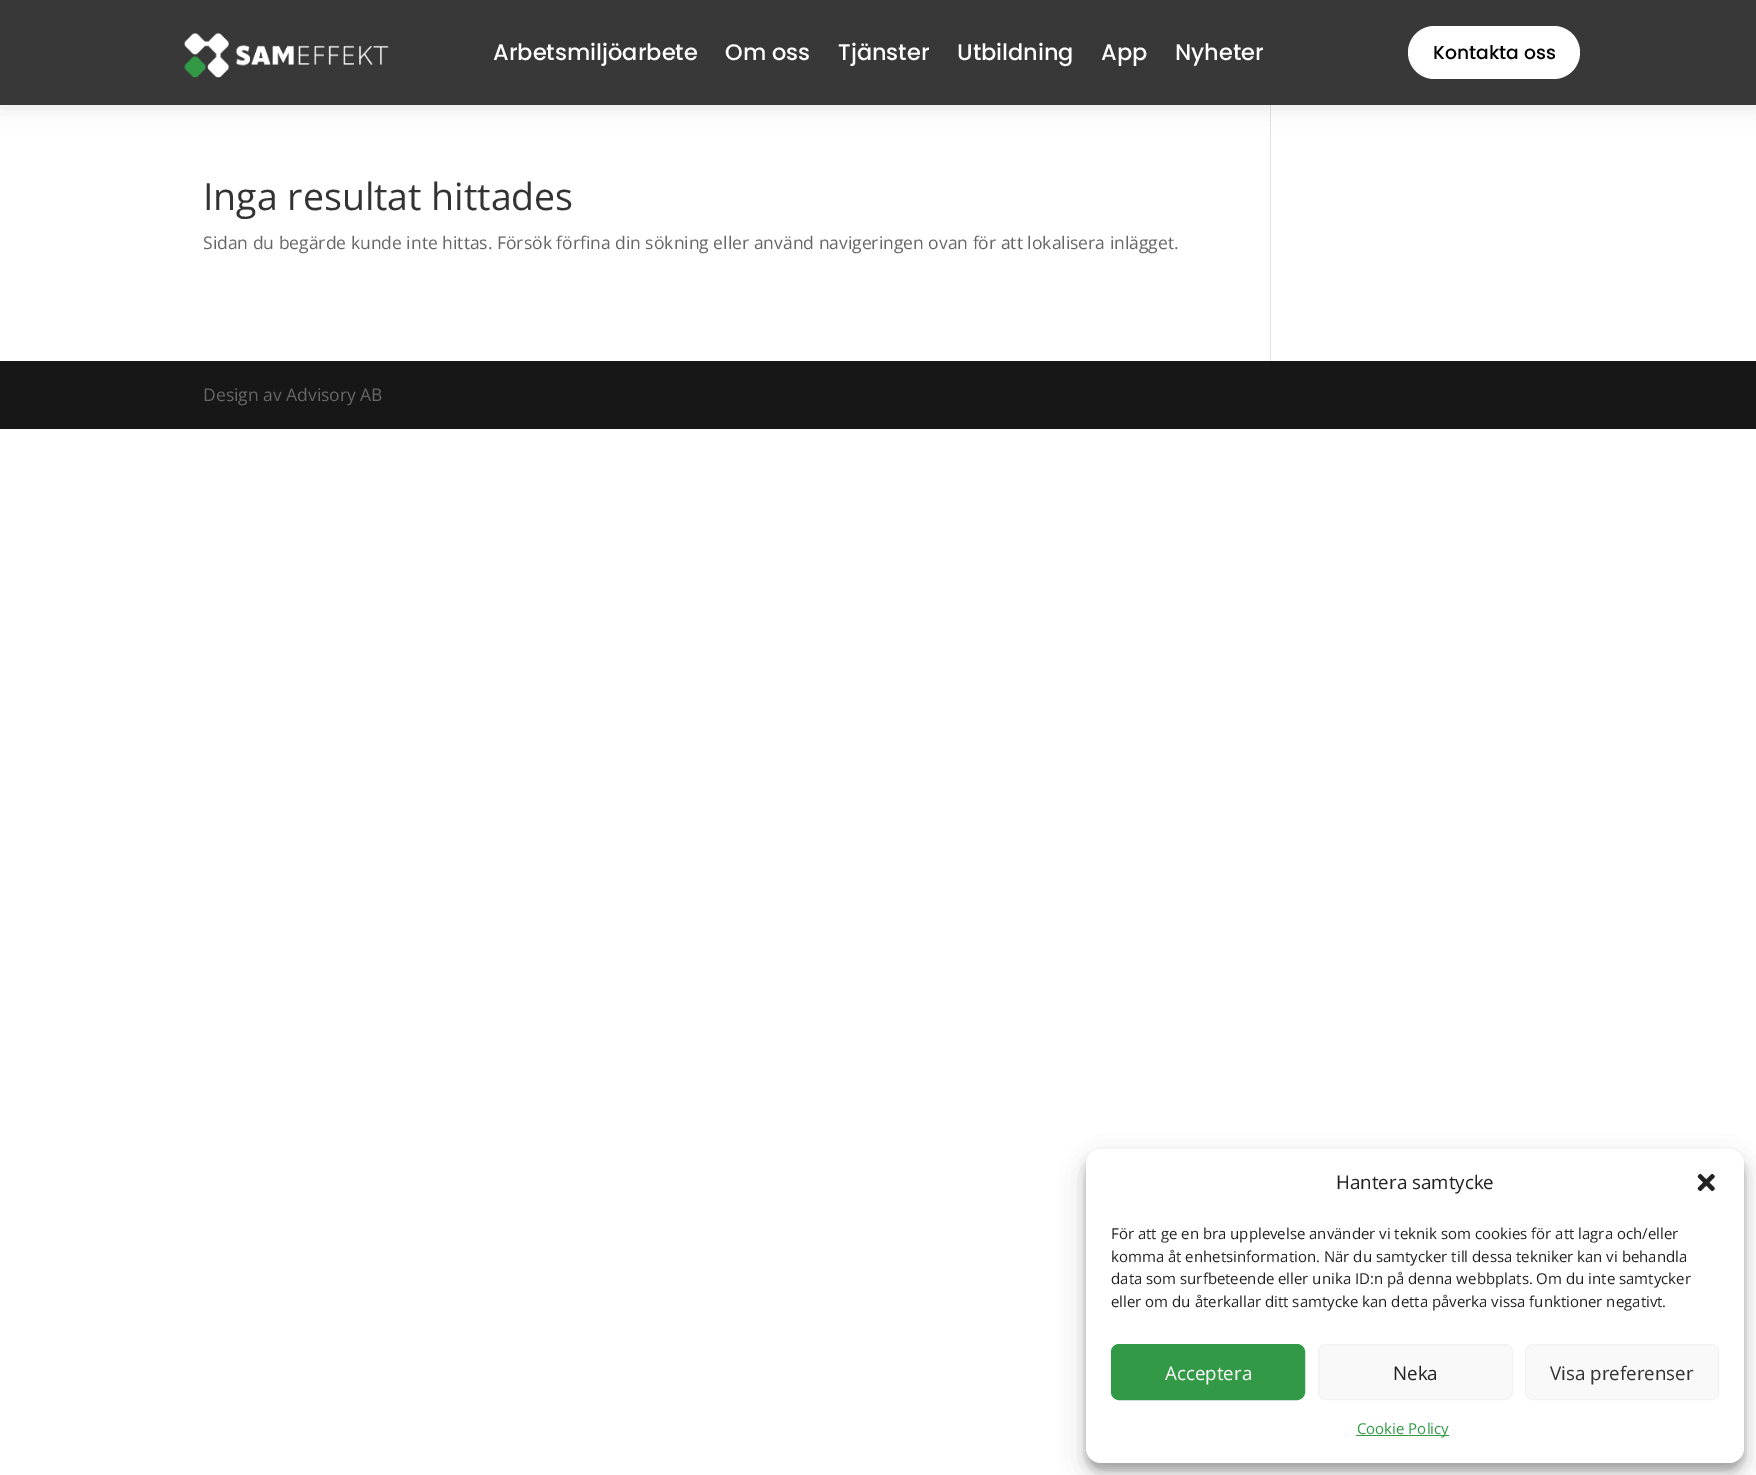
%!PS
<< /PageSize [1756 1475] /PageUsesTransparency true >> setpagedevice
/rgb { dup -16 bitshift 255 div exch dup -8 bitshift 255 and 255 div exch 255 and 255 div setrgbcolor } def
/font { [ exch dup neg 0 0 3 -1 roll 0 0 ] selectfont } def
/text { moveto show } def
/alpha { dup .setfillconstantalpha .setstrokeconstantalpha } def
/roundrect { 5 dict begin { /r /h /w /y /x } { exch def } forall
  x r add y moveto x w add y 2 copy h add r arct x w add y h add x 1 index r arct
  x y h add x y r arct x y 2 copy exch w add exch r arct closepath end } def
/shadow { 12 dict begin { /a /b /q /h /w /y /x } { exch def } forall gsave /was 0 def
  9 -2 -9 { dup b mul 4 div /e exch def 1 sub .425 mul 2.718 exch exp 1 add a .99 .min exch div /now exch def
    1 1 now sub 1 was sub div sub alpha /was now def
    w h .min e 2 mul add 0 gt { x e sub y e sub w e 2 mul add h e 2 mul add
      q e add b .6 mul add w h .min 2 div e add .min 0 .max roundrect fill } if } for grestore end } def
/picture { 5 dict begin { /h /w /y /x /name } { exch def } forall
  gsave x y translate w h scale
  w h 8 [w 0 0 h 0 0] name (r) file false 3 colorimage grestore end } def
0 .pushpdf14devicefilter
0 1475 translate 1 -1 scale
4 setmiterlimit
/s1 { /Poppins-Medium 22.5 font 16#FFFFFF rgb } def
/s2 { /Poppins-Medium 18.75 font 16#000000 rgb } def
/s3 { /OpenSans-Regular 37.5 font 16#333333 rgb } def
/s4 { /OpenSans-Regular 17.5 font 16#666666 rgb } def
/s5 { /OpenSans-Regular 18.75 font 16#222222 rgb } def
/s6 { /OpenSans-Regular 15 font 16#222222 rgb } def
/s7 { /OpenSans-Regular 18.75 font 16#FFFFFF rgb } def
/s8 { /OpenSans-Regular 18.75 font 16#333333 rgb } def
/s9 { /OpenSans-Regular 15 font 16#329A47 rgb } def
16#FFFFFF rgb
0 0 1756 1475 rectfill
16#E2E2E2 rgb
1270 105 1 256 rectfill
16#000000 rgb
0 3 1756 105 0 11 0.1 shadow
16#383838 rgb
0 0 1756 105 rectfill
(pic1.raw) 184 33 205 45 picture
s1
(Arbetsmiljöarbete) 493 60 text
(Om oss) 725 60 text
(Tjänster) 838 60 text
(Utbildning) 957 60 text
(App) 1101 60 text
(Nyheter) 1175 60 text
1408 26 172 53 26.5 roundrect fill
s2
(Kontakta oss) 1433 59 text
s3
(Inga resultat hittades) 203 210 text
s4
(Sidan du begärde kunde inte hittas. Försök förfina din sökning eller använd navigeringen ovan för att lokalisera inlägget.) 203 249 text
16#171717 rgb
0 361 1756 68 rectfill
s4
(Design av Advisory AB) 203 401 text
16#000000 rgb
1086 1156 658 314 15 4 0.23 shadow
1086 1161 658 314 15 12.5 0.19 shadow
16#FFFFFF rgb
1086 1149 658 314 15 roundrect fill
s5
(Hantera samtycke) 1336 1189 text
(pic2.raw) 1697 1173 18 19 picture
s6
(För att ge en bra upplevelse använder vi teknik som cookies för att lagra och/eller) 1111 1239 text
(komma åt enhetsinformation. När du samtycker till dessa tekniker kan vi behandla) 1111 1262 text
(data som surfbeteende eller unika ID:n på denna webbplats. Om du inte samtycker) 1111 1284 text
(eller om du återkallar ditt samtycke kan detta påverka vissa funktioner negativt.) 1111 1307 text
16#329A47 rgb
1111.5 1344.5 193 55 7.5 roundrect gsave fill grestore
stroke
s7
(Acceptera) 1165 1380 text
16#F9F9F9 rgb
1318.5 1344.5 194 55 7.5 roundrect gsave fill grestore
16#F2F2F2 rgb
stroke
s5
(Neka) 1393 1380 text
16#F9F9F9 rgb
1525.5 1344.5 193 55 7.5 roundrect gsave fill grestore
16#F2F2F2 rgb
stroke
s8
(Visa preferenser) 1550 1380 text
16#329A47 rgb
1356 1435 93 1 rectfill
s9
(Cookie Policy) 1357 1434 text
.poppdf14devicefilter showpage
